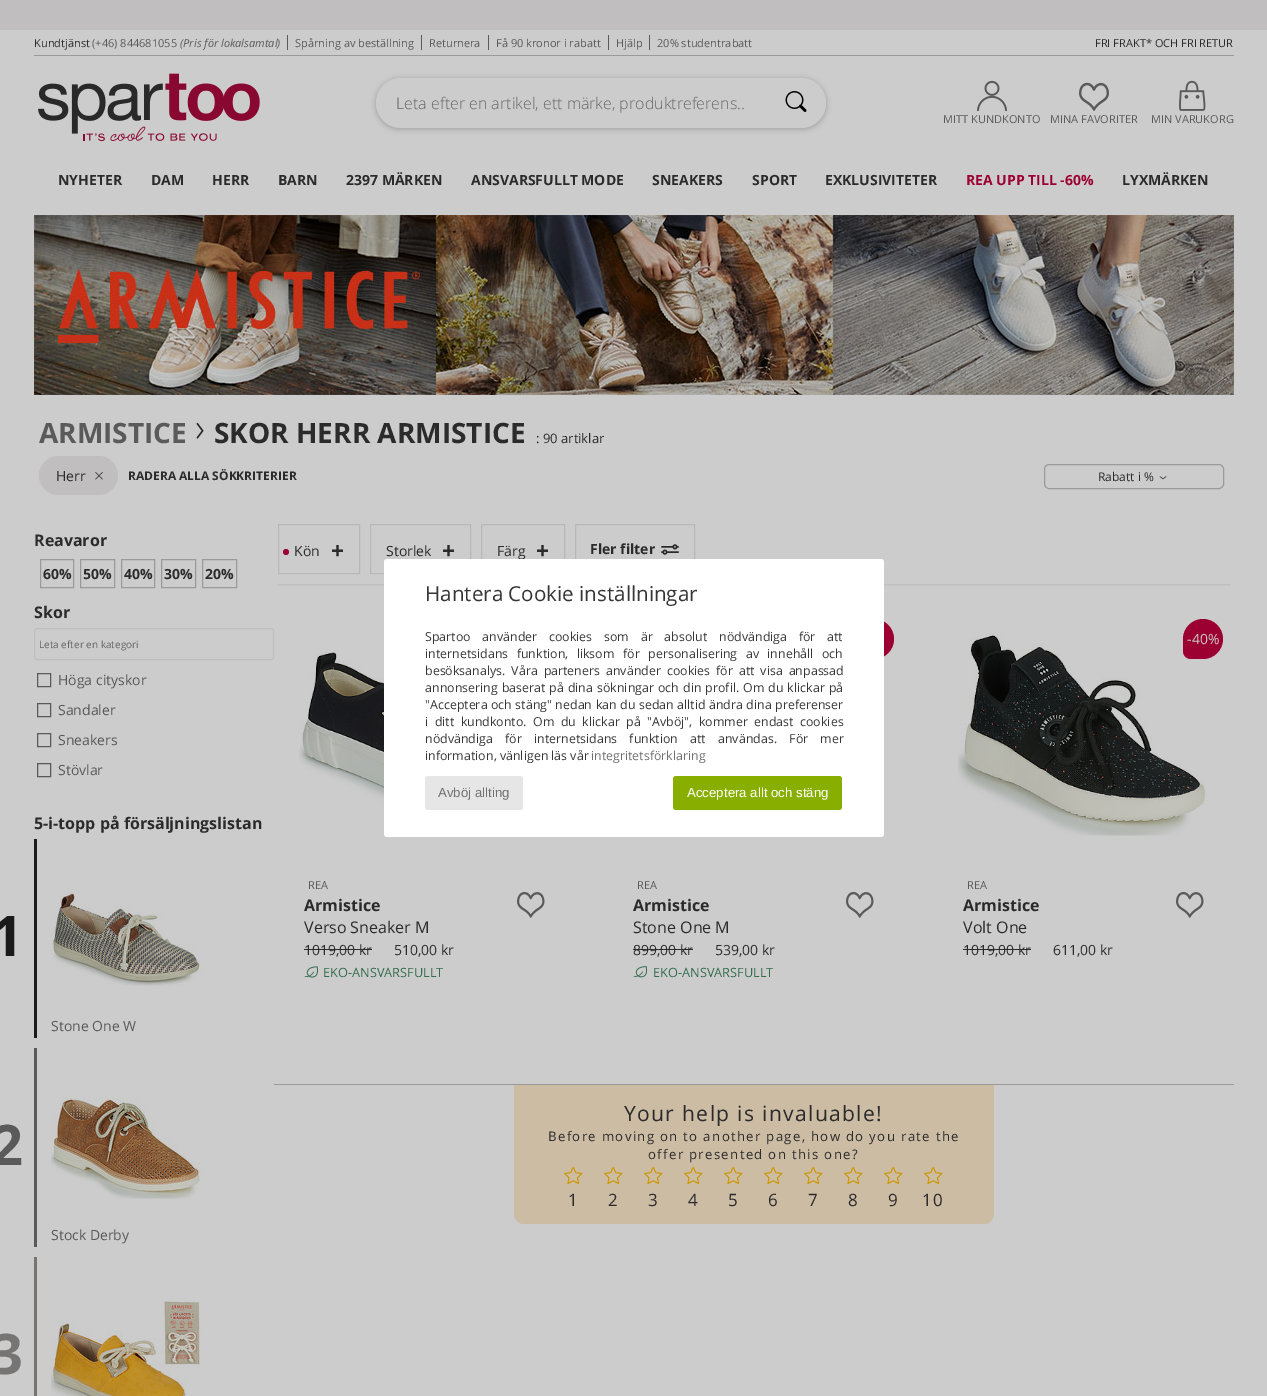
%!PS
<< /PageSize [1267 1396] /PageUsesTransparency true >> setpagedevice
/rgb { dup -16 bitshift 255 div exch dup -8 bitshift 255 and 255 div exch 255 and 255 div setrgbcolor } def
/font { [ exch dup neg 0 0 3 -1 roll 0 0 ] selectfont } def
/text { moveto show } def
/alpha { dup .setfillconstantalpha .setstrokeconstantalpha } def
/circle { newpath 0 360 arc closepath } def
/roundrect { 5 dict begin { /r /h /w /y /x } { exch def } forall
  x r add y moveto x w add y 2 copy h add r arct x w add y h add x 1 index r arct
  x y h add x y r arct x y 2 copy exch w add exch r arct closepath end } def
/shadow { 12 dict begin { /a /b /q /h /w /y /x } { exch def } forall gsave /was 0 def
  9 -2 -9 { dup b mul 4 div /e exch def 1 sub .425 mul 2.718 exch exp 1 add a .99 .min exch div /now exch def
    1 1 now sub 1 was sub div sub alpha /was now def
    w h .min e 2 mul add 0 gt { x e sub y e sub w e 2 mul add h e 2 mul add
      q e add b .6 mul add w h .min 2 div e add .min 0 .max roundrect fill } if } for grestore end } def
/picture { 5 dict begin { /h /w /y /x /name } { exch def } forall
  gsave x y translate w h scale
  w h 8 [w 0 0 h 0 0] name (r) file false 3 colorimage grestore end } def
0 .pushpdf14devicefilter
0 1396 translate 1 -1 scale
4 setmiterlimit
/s1 { /OpenSans-Regular 11 font 16#2B2B2B rgb } def
/s2 { /OpenSans-Regular 11 font 16#5A5A5A rgb } def
/s3 { /OpenSans-Italic 11 font 16#5A5A5A rgb } def
/s4 { /OpenSans-Light 16 font 16#666666 rgb } def
/s5 { /OpenSans-Bold 14 font 16#2B2B2B rgb } def
/s6 { /OpenSans-Bold 14 font 16#9C0033 rgb } def
/s7 { /OpenSans-Bold 28 font 16#5A5A5A rgb } def
/s8 { /OpenSans-Bold 28 font 16#2B2B2B rgb } def
/s9 { /OpenSans-Regular 13 font 16#2B2B2B rgb } def
/s10 { /OpenSans-Regular 14 font 16#2B2B2B rgb } def
/s11 { /OpenSans-Bold 12 font 16#2B2B2B rgb } def
/s12 { /OpenSans-Regular 12 font 16#2B2B2B rgb } def
/s13 { /OpenSans-Bold 16 font 16#2B2B2B rgb } def
/s14 { /OpenSans-Regular 10 font 16#666666 rgb } def
/s15 { /OpenSans-Regular 14 font 16#5A5A5A rgb } def
/s16 { /OpenSans-Bold 56 font 16#1A1A1A rgb } def
/s17 { /OpenSans-Bold 56 font 16#5A5A5A rgb } def
/s18 { /OpenSans-Bold 56 font 16#777474 rgb } def
/s19 { /LiberationSans-Bold 22 font 16#2B2B2B rgb } def
/s20 { /OpenSans-Regular 16 font 16#2B2B2B rgb } def
/s21 { /OpenSans-Regular 12.75 font 16#356D4F rgb } def
/s22 { /OpenSans-Regular 14 font 16#CCCCCC rgb } def
/s23 { /OpenSans-Regular 20.6 font 16#363636 rgb } def
/s24 { /OpenSans-Regular 12.4 font 16#363636 rgb } def
/s25 { /OpenSans-Regular 12.4 font 16#707070 rgb } def
/s26 { /LiberationSans-Regular 13.25 font 16#707070 rgb } def
/s27 { /LiberationSans-Regular 13.25 font 16#FFFFFF rgb } def
16#CCCCCC rgb
0 0 1267 1396 rectfill
16#C0BEBE rgb
0 0 1267 30 rectfill
16#9A9A9A rgb
34 55 1200 1 rectfill
16#5A5A5A rgb
287 35 1 15 rectfill
s1
(Kundtjänst) 34 47 text
s2
(\(+46\) 844681055) 92 47 text
s3
(\(Pris för lokalsamtal\)) 180 47 text
421 35 1 15 rectfill
s2
(Spårning av beställning) 295 47 text
488 35 1 15 rectfill
(Returnera) 429 47 text
608 35 1 15 rectfill
(Få 90 kronor i rabatt) 496 47 text
649 35 1 15 rectfill
(Hjälp) 616 47 text
(20% studentrabatt) 657 47 text
s1
(FRI FRAKT* OCH FRI RETUR) 1095 47 text
(pic1.raw) 38 73 222 69 picture
16#1A1A1D rgb
376 79 450 50 25 3 0.28 shadow
16#CCCCCC rgb
376 78 450 50 25 roundrect fill
s4
(Leta efter en artikel, ett märke, produktreferens..) 396 109 text
(pic2.raw) 785 91 22 21 picture
(pic3.raw) 977 80 30 31 picture
s2
(MITT KUNDKONTO) 943 123 text
(pic4.raw) 1079 82 30 29 picture
(MINA FAVORITER) 1050 123 text
(pic5.raw) 1179 80 27 31 picture
(MIN VARUKORG) 1151 123 text
s5
(NYHETER) 58 185 text
(DAM) 151 185 text
(HERR) 212 185 text
(BARN) 278 185 text
(2397 MÄRKEN) 346 185 text
(ANSVARSFULLT MODE) 471 185 text
(SNEAKERS) 652 185 text
(SPORT) 752 185 text
(EXKLUSIVITETER) 825 185 text
s6
(REA UPP TILL -60%) 966 185 text
s5
(LYXMÄRKEN) 1122 185 text
(pic6.raw) 34 215 1200 180 picture
s7
(ARMISTICE) 39 443 text
(pic7.raw) 196 422 8 17 picture
s8
(SKOR HERR ARMISTICE) 214 443 text
s9
(: 90 artiklar) 536 443 text
16#C0BEBE rgb
39 456 79 39 19.5 roundrect fill
s10
(Herr) 56 481 text
(pic8.raw) 95 472 8 8 picture
s11
(RADERA ALLA SÖKKRITERIER) 128 480 text
16#9A9A9A rgb
1044.5 464.5 179 24 4.5 roundrect stroke
s12
(Rabatt i %) 1098 481 text
(pic9.raw) 1159 476 8 4 picture
s13
(Reavaror) 34 546 text
16#9A9A9A rgb
40.5 559.5 33 28 rectstroke
s5
(60%) 43 579 text
16#9A9A9A rgb
80.5 559.5 34 28 rectstroke
s5
(50%) 83 579 text
16#9A9A9A rgb
121.5 559.5 33 28 rectstroke
s5
(40%) 124 579 text
16#9A9A9A rgb
161.5 559.5 34 28 rectstroke
s5
(30%) 164 579 text
16#9A9A9A rgb
202.5 559.5 34 28 rectstroke
s5
(20%) 205 579 text
s13
(Skor) 34 618 text
16#C0BEBE rgb
34.5 628.5 239 31 2.5 roundrect stroke
s14
(Leta efter en kategori) 39 648 text
16#5A5A5A rgb
37.5 673.5 13 13 rectstroke
s15
(Höga cityskor) 58 685 text
37.5 703.5 13 13 rectstroke
(Sandaler) 58 715 text
37.5 733.5 13 13 rectstroke
(Sneakers) 58 745 text
37.5 763.5 13 13 rectstroke
(Stövlar) 58 775 text
s13
(5-i-topp på försäljningslistan) 34 829 text
16#1A1A1A rgb
34 839 3 199 rectfill
s16
(1) -9 956 text
(pic10.raw) 51 888 150 98 picture
s15
(Stone One W) 51 1031 text
34 1048 3 199 rectfill
s17
(2) -9 1165 text
(pic11.raw) 51 1097 150 102 picture
s15
(Stock Derby) 51 1240 text
16#777474 rgb
34 1257 3 139 rectfill
s18
(3) -9 1374 text
(pic12.raw) 51 1298 150 98 picture
gsave
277 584 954 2 rectclip
16#000000 rgb
278 526 952 57 0 2 0.25 shadow
grestore
16#B8B8B8 rgb
278.5 524.5 81 49 rectstroke
16#9C0033 rgb
286 552 3 circle fill
s10
(Kön) 294 556 text
s19
(+) 331 558 text
16#B8B8B8 rgb
370.5 524.5 100 49 rectstroke
s10
(Storlek) 386 556 text
s19
(+) 442 558 text
16#B8B8B8 rgb
481.5 524.5 83 49 rectstroke
s10
(Färg) 497 556 text
s19
(+) 536 558 text
16#B8B8B8 rgb
575.5 524.5 119 49 rectstroke
s5
(Fler filter) 590 554 text
(pic13.raw) 661 544 18 11 picture
(pic14.raw) 299 652 85 167 picture
s2
(REA) 308 889 text
s13
(Armistice) 304 911 text
s20
(Verso Sneaker M) 304 933 text
s10
(1019,00 kr) 304 955 text
304 949 68 1 rectfill
(510,00 kr) 394 955 text
(pic15.raw) 304 966 14 12 picture
s21
(EKO-ANSVARSFULLT) 323 977 text
(pic16.raw) 517 891 28 27 picture
16#9C0033 rgb
874 619 moveto 885 619 894 628 894 639 curveto 894 650 885 659 874 659 curveto 862 659 lineto 857.5 659 854 655.5 854 651 curveto 854 639 lineto 854 628 863 619 874 619 curveto closepath fill
s2
(REA) 637 889 text
s13
(Armistice) 633 911 text
s20
(Stone One M) 633 933 text
s10
(899,00 kr) 633 955 text
633 949 60 1 rectfill
(539,00 kr) 715 955 text
(pic17.raw) 633 966 15 12 picture
s21
(EKO-ANSVARSFULLT) 653 977 text
(pic16.raw) 846 891 28 27 picture
(pic18.raw) 958 633 250 203 picture
16#9C0033 rgb
1203 619 moveto 1214 619 1223 628 1223 639 curveto 1223 650 1214 659 1203 659 curveto 1191 659 lineto 1186.5 659 1183 655.5 1183 651 curveto 1183 639 lineto 1183 628 1192 619 1203 619 curveto closepath fill
s22
(-40%) 1187 644 text
s2
(REA) 967 889 text
s13
(Armistice) 963 911 text
s20
(Volt One) 963 933 text
s10
(1019,00 kr) 963 955 text
963 949 68 1 rectfill
(611,00 kr) 1053 955 text
(pic16.raw) 1176 891 28 27 picture
16#9A9A9A rgb
274 1084 960 1 rectfill
16#CCBCA3 rgb
514 1085 moveto 994 1085 lineto 994 1214 lineto 994 1219.5 989.5 1224 984 1224 curveto 524 1224 lineto 518.5 1224 514 1219.5 514 1214 curveto closepath fill
/OpenSans-Regular 21.1 font
16#2B2B2B rgb
624 1121 moveto 1.32 0 (Your help is invaluable!) ashow
/OpenSans-Regular 13.2 font
548 1141 moveto 1.32 0 (Before moving on to another page, how do you rate the) ashow
648 1159 moveto 1.32 0 (offer presented on this one?) ashow
(pic19.raw) 564 1166 19 19 picture
(pic19.raw) 604 1166 19 19 picture
(pic19.raw) 644 1166 19 19 picture
(pic19.raw) 684 1166 19 19 picture
(pic19.raw) 724 1166 19 19 picture
(pic19.raw) 764 1166 19 19 picture
(pic19.raw) 804 1166 19 19 picture
(pic19.raw) 844 1166 19 19 picture
(pic19.raw) 884 1166 19 19 picture
(pic19.raw) 924 1166 19 19 picture
/OpenSans-Regular 17 font
568 1206 moveto 1.32 0 (1) ashow
608 1206 moveto 1.32 0 (2) ashow
648 1206 moveto 1.32 0 (3) ashow
688 1206 moveto 1.32 0 (4) ashow
728 1206 moveto 1.32 0 (5) ashow
768 1206 moveto 1.32 0 (6) ashow
808 1206 moveto 1.32 0 (7) ashow
848 1206 moveto 1.32 0 (8) ashow
888 1206 moveto 1.32 0 (9) ashow
922 1206 moveto 1.32 0 (10) ashow
16#FFFFFF rgb
384 559 500 278 3 roundrect fill
s23
(Hantera Cookie inställningar) 425 601 text
/OpenSans-Regular 12.4 font
425 641 moveto 8.5 0 32 (Spartoo använder cookies som är absolut nödvändiga för att) widthshow
425 658 moveto 5.25 0 32 (internetsidans funktion, liksom för personalisering av innehåll och) widthshow
425 675 moveto 2.75 0 32 (besöksanalys. Våra parteners använder cookies för att visa anpassad) widthshow
425 692 moveto 0.75 0 32 (annonsering baserat på dina sökningar och din profil. Om du klickar på) widthshow
425 709 moveto 0.25 0 32 ("Acceptera och stäng" nedan kan du sedan alltid ändra dina preferenser) widthshow
425 726 moveto 3.25 0 32 (i ditt kundkonto. Om du klickar på "Avböj", kommer endast cookies) widthshow
425 743 moveto 9 0 32 (nödvändiga för internetsidans funktion att användas. För mer) widthshow
(information, vänligen läs vår) 425 760 text
s25
(integritetsförklaring) 591 760 text
16#E6E6E6 rgb
425 776 98 34 3 roundrect fill
s26
(Avböj allting) 438 797 text
16#88AF00 rgb
673 776 169 34 3 roundrect fill
s27
(Acceptera allt och stäng) 687 797 text
.poppdf14devicefilter showpage
